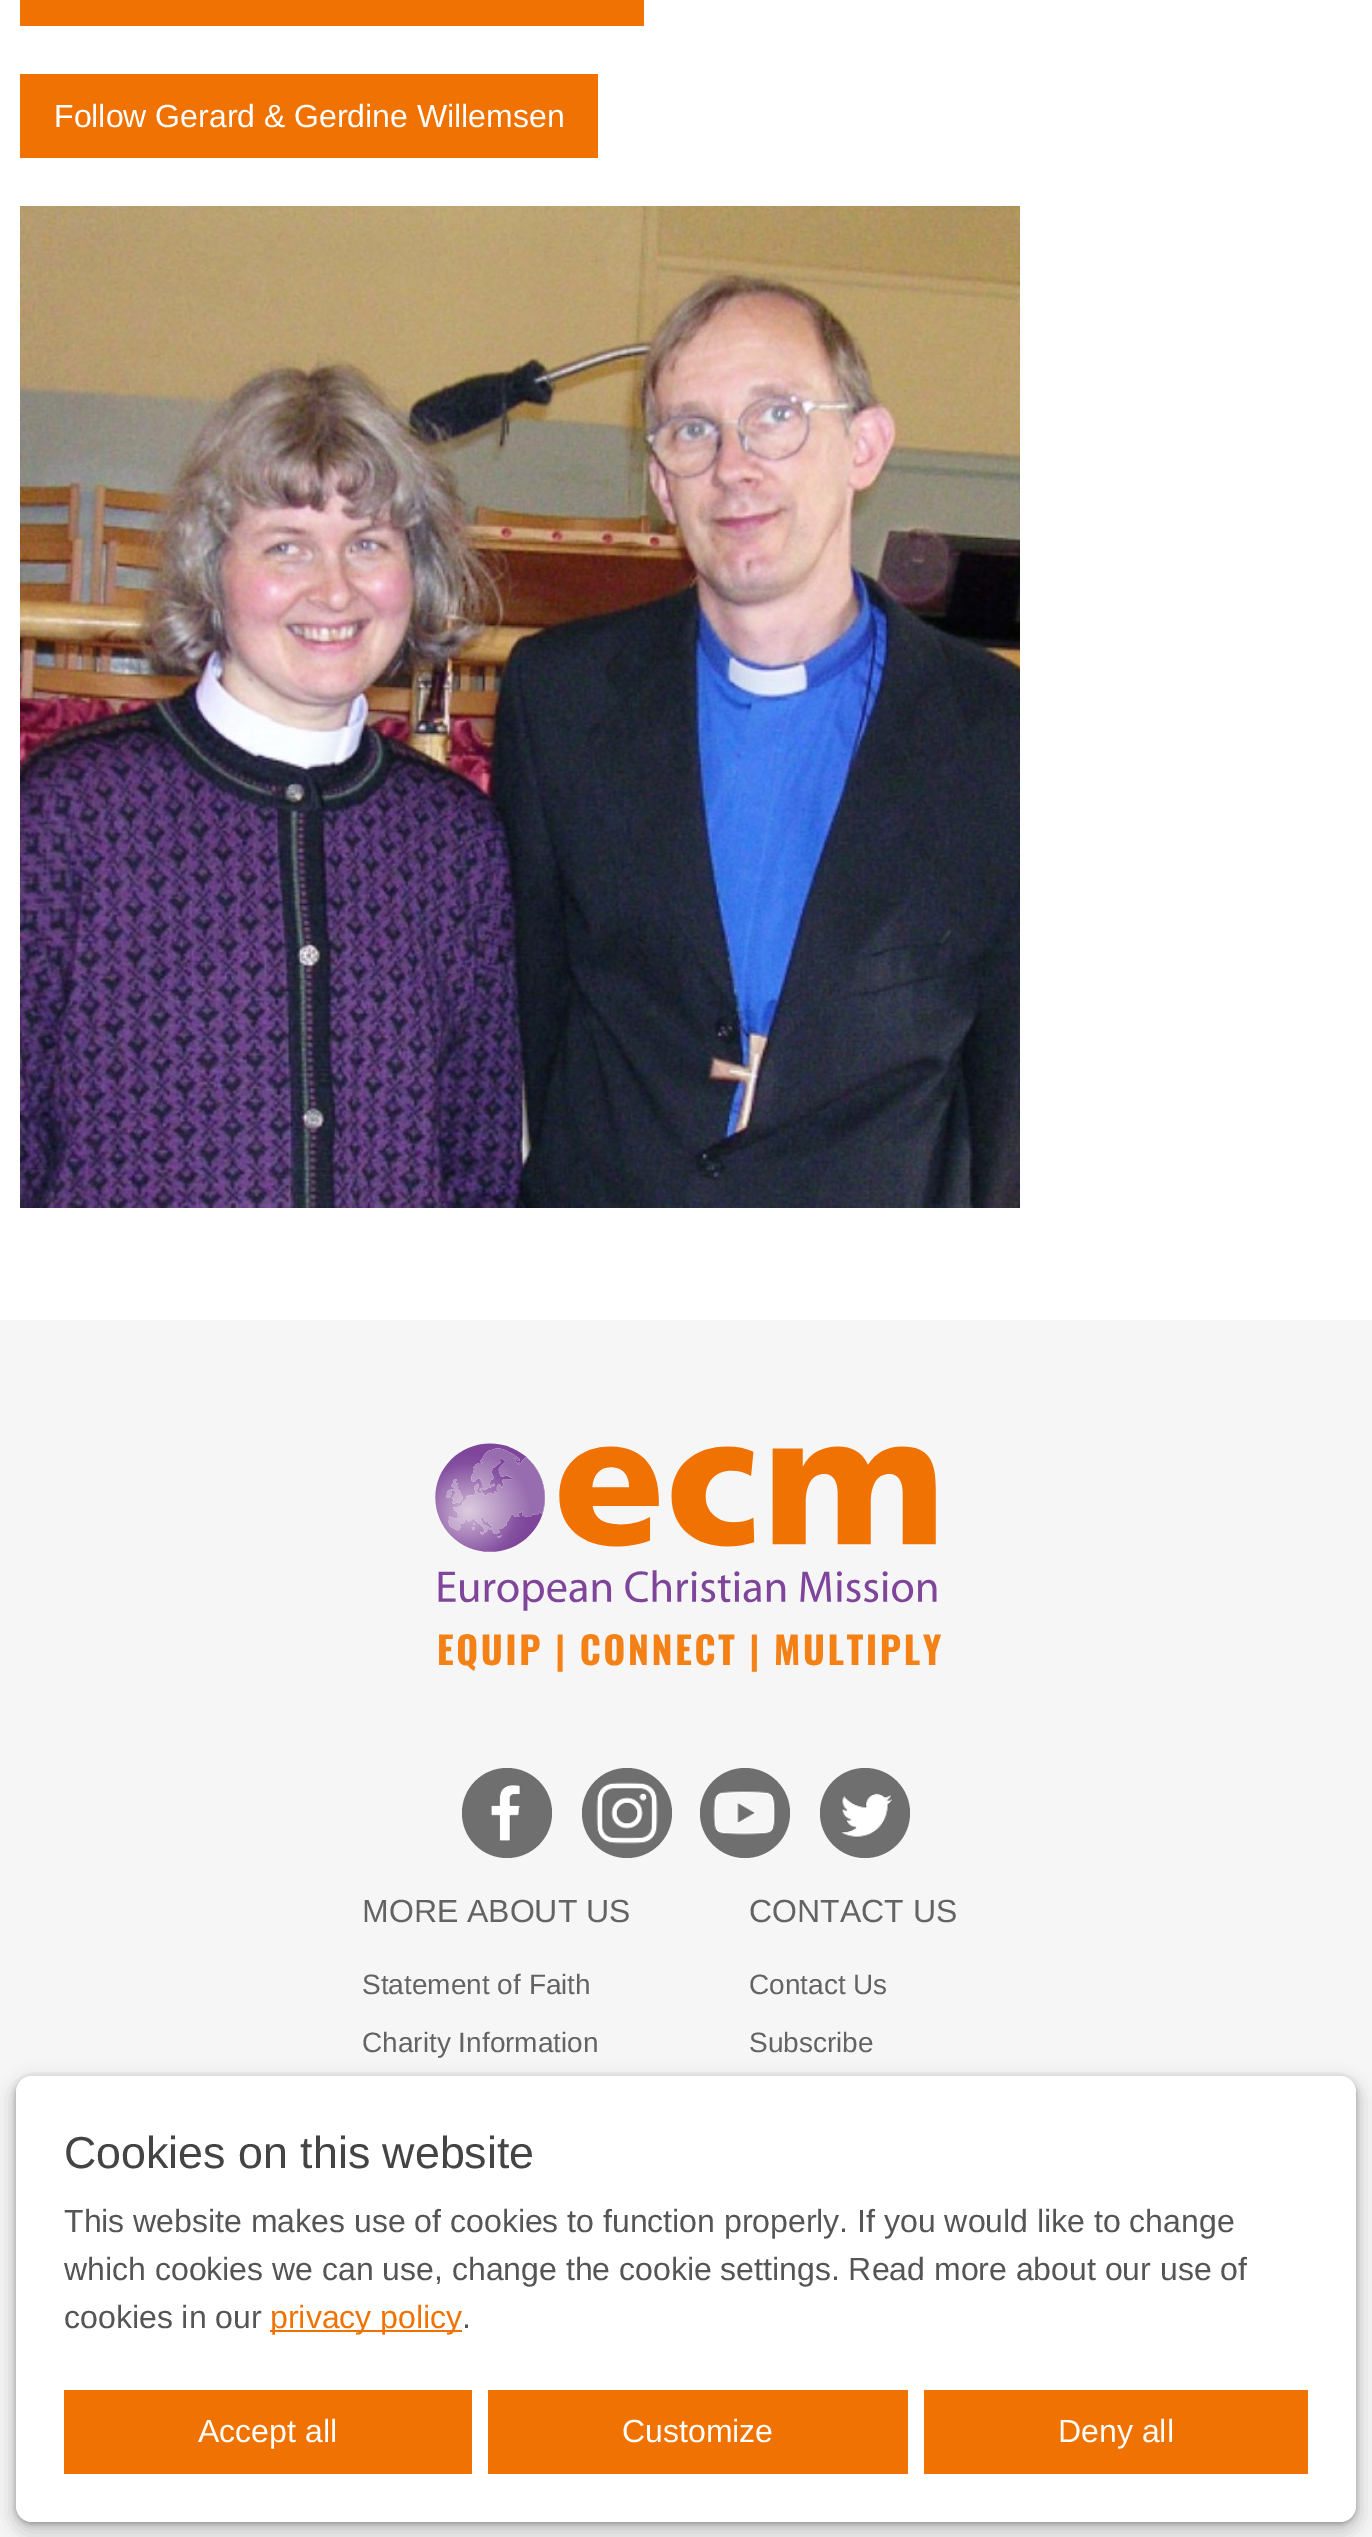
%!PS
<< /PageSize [1372 2537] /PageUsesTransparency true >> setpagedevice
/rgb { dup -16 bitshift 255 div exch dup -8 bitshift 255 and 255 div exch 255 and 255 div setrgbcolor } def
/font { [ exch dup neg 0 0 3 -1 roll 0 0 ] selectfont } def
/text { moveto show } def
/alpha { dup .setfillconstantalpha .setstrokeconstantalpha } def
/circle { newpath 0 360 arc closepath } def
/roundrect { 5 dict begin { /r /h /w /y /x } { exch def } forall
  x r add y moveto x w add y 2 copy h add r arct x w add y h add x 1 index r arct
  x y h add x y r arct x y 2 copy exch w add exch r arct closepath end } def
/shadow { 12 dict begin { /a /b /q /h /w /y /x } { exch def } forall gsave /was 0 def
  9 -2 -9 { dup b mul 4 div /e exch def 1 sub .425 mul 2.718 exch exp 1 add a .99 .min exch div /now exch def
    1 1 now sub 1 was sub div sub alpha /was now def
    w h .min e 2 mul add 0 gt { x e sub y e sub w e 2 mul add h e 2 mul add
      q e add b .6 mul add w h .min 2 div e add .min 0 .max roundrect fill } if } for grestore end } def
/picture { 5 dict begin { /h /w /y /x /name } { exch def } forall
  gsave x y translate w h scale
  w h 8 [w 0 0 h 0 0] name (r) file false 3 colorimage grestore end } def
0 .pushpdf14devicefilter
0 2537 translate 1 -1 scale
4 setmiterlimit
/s1 { /LiberationSans-Regular 32 font 16#FFFFFF rgb } def
/s2 { /LiberationSans-Regular 32 font 16#636363 rgb } def
/s3 { /LiberationSans-Regular 28 font 16#636363 rgb } def
/s4 { /LiberationSans-Regular 44.75 font 16#444444 rgb } def
/s5 { /LiberationSans-Regular 32 font 16#555555 rgb } def
/s6 { /LiberationSans-Regular 32 font 16#EF7202 rgb } def
16#F6F6F6 rgb
0 0 1372 2537 rectfill
16#FFFFFF rgb
0 0 1372 1320 rectfill
16#EF7202 rgb
20 0 624 26 rectfill
20 74 578 84 rectfill
s1
(Follow Gerard & Gerdine Willemsen) 54 127 text
(pic1.raw) 20 206 1000 1002 picture
(pic2.raw) 435 1443 506 229 picture
16#6F6F6F rgb
507 1813 45 circle fill
(pic3.raw) 490 1785 31 56 picture
627 1813 45 circle fill
(pic4.raw) 596 1782 62 62 picture
745 1813 45 circle fill
(pic5.raw) 713 1790 63 45 picture
865 1813 45 circle fill
(pic6.raw) 840 1793 53 45 picture
s2
(MORE ABOUT US) 362 1922 text
s3
(Statement of Faith) 362 1994 text
(Charity Information) 362 2052 text
s2
(CONTACT US) 749 1922 text
s3
(Contact Us) 749 1994 text
(Subscribe) 749 2052 text
16#000000 rgb
16 2078 1340 446 16 3 0.3 shadow
10 2078 1352 458 22 8 0.15 shadow
16#FFFFFF rgb
16 2076 1340 446 16 roundrect fill
s4
(Cookies on this website) 64 2168 text
s5
(This website makes use of cookies to function properly. If you would like to change) 64 2232 text
(which cookies we can use, change the cookie settings. Read more about our use of) 64 2280 text
(cookies in our) 64 2328 text
16#EF7202 rgb
270 2330 192 2 rectfill
(privacy policy) 270 2328 text
s5
(.) 462 2328 text
16#EF7202 rgb
64 2390 408 84 rectfill
s1
(Accept all) 198 2442 text
16#EF7202 rgb
488 2390 420 84 rectfill
s1
(Customize) 622 2442 text
16#EF7202 rgb
924 2390 384 84 rectfill
s1
(Deny all) 1058 2442 text
.poppdf14devicefilter showpage
